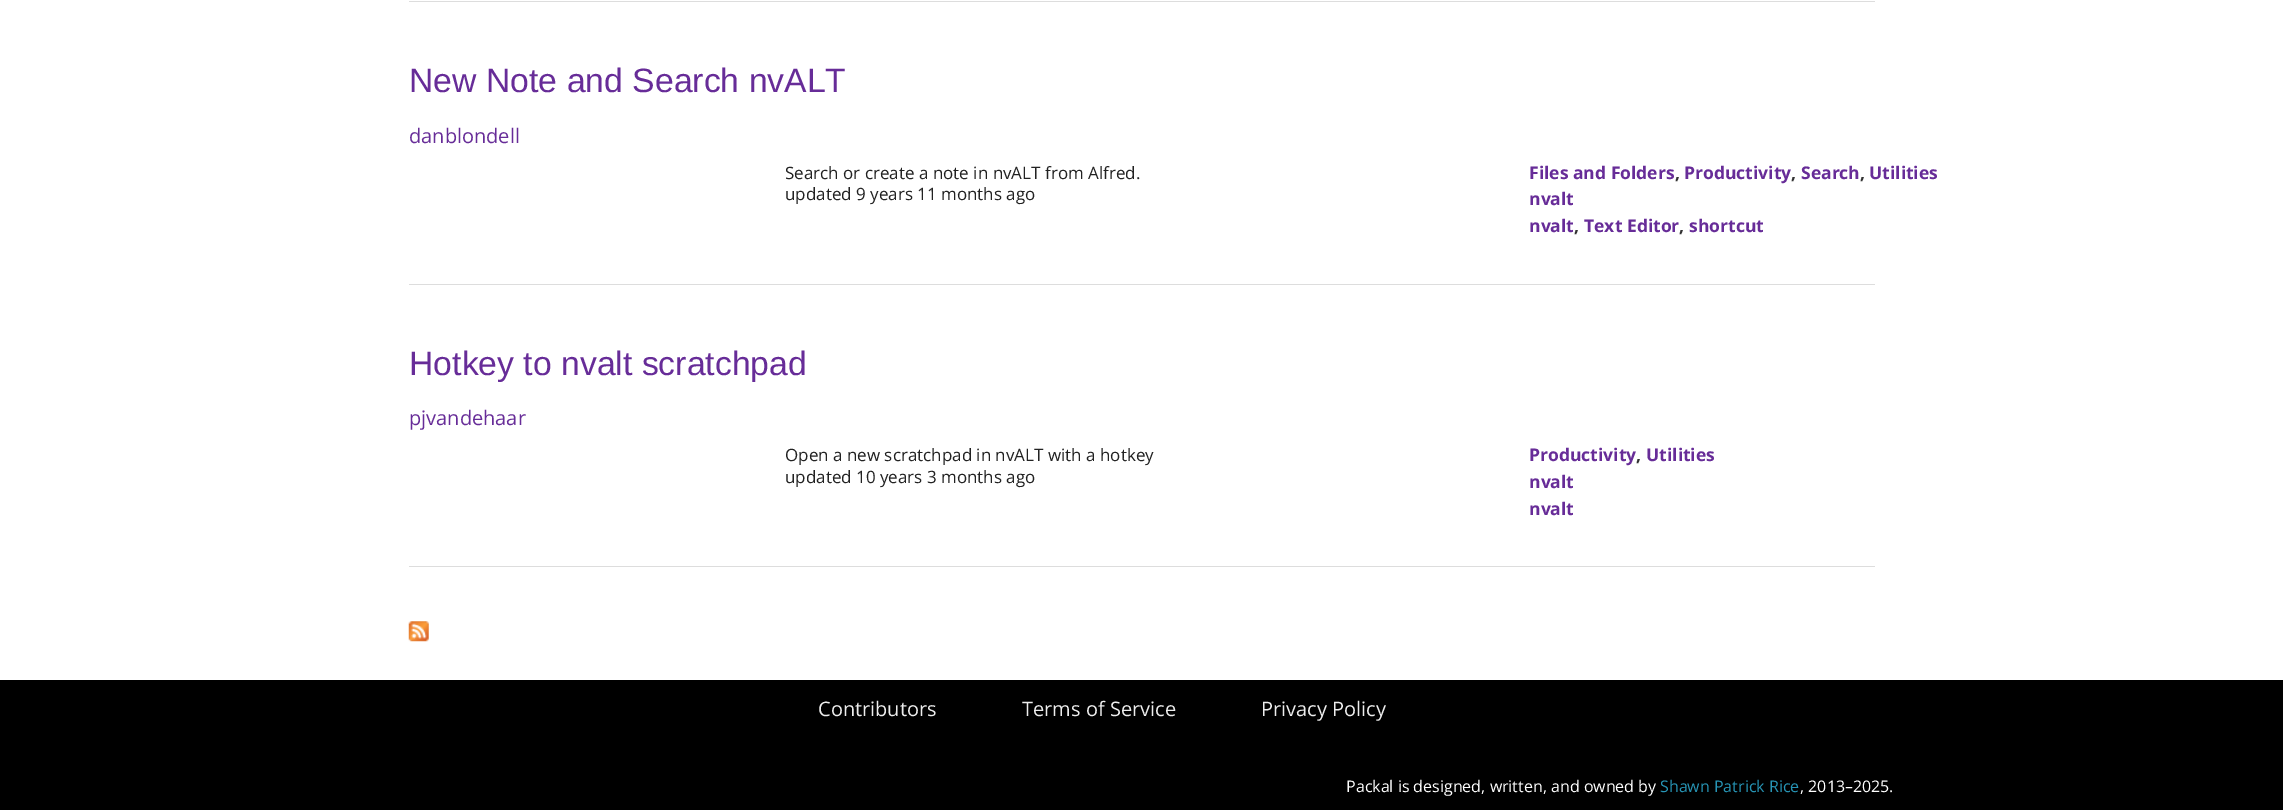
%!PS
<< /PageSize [2283 810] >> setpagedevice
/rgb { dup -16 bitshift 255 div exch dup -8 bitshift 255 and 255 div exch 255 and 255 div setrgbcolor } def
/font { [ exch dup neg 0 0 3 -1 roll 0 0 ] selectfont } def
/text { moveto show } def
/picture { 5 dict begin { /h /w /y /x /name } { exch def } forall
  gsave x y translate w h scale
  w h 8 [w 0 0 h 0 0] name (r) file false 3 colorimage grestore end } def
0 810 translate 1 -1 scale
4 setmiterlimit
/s1 { /LiberationSans-Regular 33.75 font 16#672C98 rgb } def
/s2 { /OpenSans-Regular 20 font 16#672C98 rgb } def
/s3 { /OpenSans-Regular 17 font 16#222222 rgb } def
/s4 { /OpenSans-Bold 17.5 font 16#672C98 rgb } def
/s5 { /OpenSans-Bold 17.5 font 16#333333 rgb } def
/s6 { /OpenSans-Regular 20 font 16#EDEDED rgb } def
/s7 { /OpenSans-Regular 16 font 16#FFFFFF rgb } def
/s8 { /OpenSans-Regular 16 font 16#2795B6 rgb } def
16#FFFFFF rgb
0 0 2283 810 rectfill
16#DDDDDD rgb
409 1 1466 1 rectfill
s1
(New Note and Search nvALT) 409 92 text
s2
(danblondell) 409 143 text
s3
(Search or create a note in nvALT from Alfred.) 785 179 text
(updated 9 years 11 months ago) 785 200 text
s4
(Files and Folders) 1529 179 text
s5
(,) 1675 179 text
s4
(Productivity) 1684 179 text
s5
(,) 1791 179 text
s4
(Search) 1801 179 text
s5
(,) 1860 179 text
s4
(Utilities) 1869 179 text
(nvalt) 1529 205 text
(nvalt) 1529 232 text
s5
(,) 1574 232 text
s4
(Text Editor) 1584 232 text
s5
(,) 1679 232 text
s4
(shortcut) 1689 232 text
16#DDDDDD rgb
409 284 1466 1 rectfill
s1
(Hotkey to nvalt scratchpad) 409 375 text
s2
(pjvandehaar) 409 425 text
s3
(Open a new scratchpad in nvALT with a hotkey) 785 461 text
(updated 10 years 3 months ago) 785 483 text
s4
(Productivity) 1529 461 text
s5
(,) 1636 461 text
s4
(Utilities) 1646 461 text
(nvalt) 1529 488 text
(nvalt) 1529 515 text
16#DDDDDD rgb
409 566 1466 1 rectfill
(pic1.raw) 408 621 21 21 picture
16#000000 rgb
0 680 2283 130 rectfill
s6
(Contributors) 818 716 text
(Terms of Service) 1022 716 text
(Privacy Policy) 1261 716 text
s7
(Packal is designed, written, and owned by) 1346 792 text
s8
(Shawn Patrick Rice) 1660 792 text
s7
(, 2013–2025.) 1800 792 text
showpage
